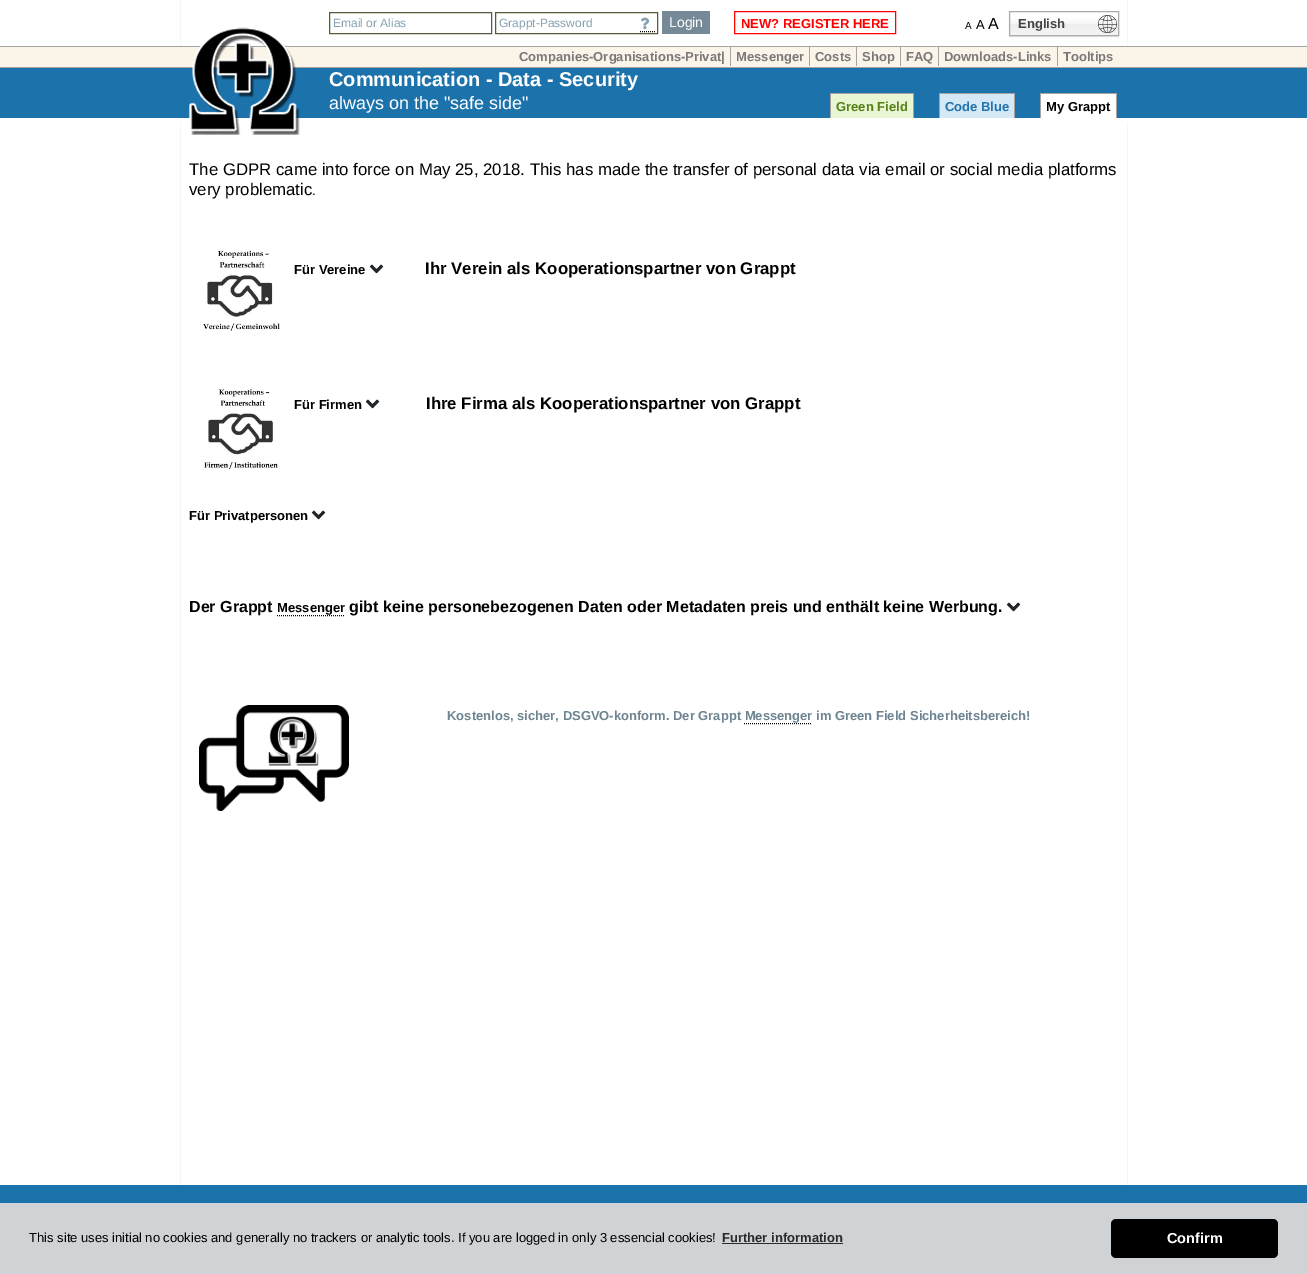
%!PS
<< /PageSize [1307 1274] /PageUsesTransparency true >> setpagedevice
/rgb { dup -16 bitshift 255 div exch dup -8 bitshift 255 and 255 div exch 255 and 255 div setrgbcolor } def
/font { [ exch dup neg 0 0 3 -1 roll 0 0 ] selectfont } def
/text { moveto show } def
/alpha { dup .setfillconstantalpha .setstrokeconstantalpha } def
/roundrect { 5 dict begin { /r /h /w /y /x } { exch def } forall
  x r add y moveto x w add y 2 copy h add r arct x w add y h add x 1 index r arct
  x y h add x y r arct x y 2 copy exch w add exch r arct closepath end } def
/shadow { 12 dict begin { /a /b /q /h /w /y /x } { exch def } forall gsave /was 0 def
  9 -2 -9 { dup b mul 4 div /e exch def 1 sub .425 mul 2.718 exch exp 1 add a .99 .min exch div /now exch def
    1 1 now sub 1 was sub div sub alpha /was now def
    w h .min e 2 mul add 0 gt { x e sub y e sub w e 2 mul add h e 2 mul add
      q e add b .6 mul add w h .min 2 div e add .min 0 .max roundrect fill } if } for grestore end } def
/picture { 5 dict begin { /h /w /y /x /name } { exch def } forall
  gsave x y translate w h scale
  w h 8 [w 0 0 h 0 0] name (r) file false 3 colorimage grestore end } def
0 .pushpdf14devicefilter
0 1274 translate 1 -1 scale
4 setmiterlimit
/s1 { /LiberationSans-Regular 12 font 16#85A0B1 rgb } def
/s2 { /LiberationSans-Regular 14 font 16#FFFFFF rgb } def
/s3 { /LiberationSans-Bold 13 font 16#FF0000 rgb } def
/s4 { /LiberationSans-Regular 10 font 16#000000 rgb } def
/s5 { /LiberationSans-Regular 13 font 16#000000 rgb } def
/s6 { /LiberationSans-Regular 16 font 16#000000 rgb } def
/s7 { /LiberationSans-Bold 13 font 16#444444 rgb } def
/s8 { /LiberationSans-Bold 13 font 16#7A7878 rgb } def
/s9 { /LiberationSans-Bold 20 font 16#FFFFFF rgb } def
/s10 { /LiberationSans-Regular 18 font 16#FFFFFF rgb } def
/s11 { /LiberationSans-Bold 13 font 16#568018 rgb } def
/s12 { /LiberationSans-Bold 13 font 16#2073AB rgb } def
/s13 { /LiberationSans-Bold 13 font 16#000000 rgb } def
/s14 { /LiberationSans-Regular 16.8 font 16#000000 rgb } def
/s15 { /LiberationSans-Regular 14 font 16#000000 rgb } def
/s16 { /LiberationSans-Bold 16.8 font 16#000000 rgb } def
/s17 { /LiberationSans-Bold 16 font 16#000000 rgb } def
/s18 { /LiberationSans-Bold 13 font 16#6D8491 rgb } def
/s19 { /LiberationSans-Bold 13 font 16#292A2B rgb } def
/s20 { /LiberationSans-Bold 14.5 font 16#FFFFFF rgb } def
16#FFFFFF rgb
0 0 1307 1274 rectfill
16#F5F5F5 rgb
1127 0 1 46 rectfill
180 0 1 46 rectfill
16#58593D rgb
329.5 12.5 162 21 rectstroke
s1
(Email or Alias) 333 27 text
16#58593D rgb
495.5 12.5 162 21 rectstroke
s1
(Grappt-Password) 499 27 text
16#000000 rgb
[1 1] 0 setdash
640 31.5 moveto 656 31.5 lineto stroke
(pic1.raw) 640 17 10 12 picture
16#758A96 rgb
662 11 48 23 rectfill
s2
(Login) 669 27 text
16#FF0000 rgb
[] 0 setdash
734.5 11.5 161 22 rectstroke
s3
(NEW? REGISTER HERE) 741 28 text
s4
(A) 965 29 text
s5
(A) 976 29 text
s6
(A) 988 29 text
1009 12 110 25 0 0.5 0.1 shadow
gsave 1010 12 moveto 1118 12 lineto 1118 35 lineto 1010 35 lineto closepath clip newpath
<< /ShadingType 2 /ColorSpace /DeviceRGB /Coords [1064 12 1064 35] /Extend [true true] /Function << /FunctionType 3 /Domain [0 1] /Functions [<< /FunctionType 2 /Domain [0 1] /C0 [1 1 1] /C1 [1 1 1] /N 1 >> << /FunctionType 2 /Domain [0 1] /C0 [1 1 1] /C1 [0.965 0.965 0.965] /N 1 >> << /FunctionType 2 /Domain [0 1] /C0 [0.965 0.965 0.965] /C1 [0.933 0.933 0.933] /N 1 >> << /FunctionType 2 /Domain [0 1] /C0 [0.933 0.933 0.933] /C1 [0.957 0.957 0.957] /N 1 >>] /Bounds [0.2 0.5 0.52] /Encode [0 1 0 1 0 1 0 1] >> >> shfill grestore
16#AAAAAA rgb
1009.5 11.5 109 24 rectstroke
s7
(English) 1018 28 text
(pic2.raw) 1098 15 19 18 picture
16#FBF4E9 rgb
0 47 1307 20 rectfill
16#A5A4A2 rgb
0 46 1307 1 rectfill
0 67 1307 1 rectfill
730 47 1 19 rectfill
s8
(Companies-Organisations-Privat|) 519 61 text
16#A5A4A2 rgb
809 47 1 19 rectfill
s8
(Messenger) 736 61 text
16#A5A4A2 rgb
856 47 1 19 rectfill
s8
(Costs) 815 61 text
16#A5A4A2 rgb
900 47 1 19 rectfill
s8
(Shop) 862 61 text
16#A5A4A2 rgb
938 47 1 19 rectfill
s8
(FAQ) 906 61 text
16#A5A4A2 rgb
1057 47 1 19 rectfill
s8
(Downloads-Links) 944 61 text
(Tooltips) 1063 61 text
16#1C73AC rgb
0 68 1307 50 rectfill
(pic3.raw) 189 27 111 108 picture
s9
(Communication - Data - Security) 329 86 text
s10
(always on the "safe side") 329 109 text
16#E8F6D4 rgb
831 94 82 24 rectfill
s11
(Green Field) 836 111 text
16#A5A4A2 rgb
830 93 84 1 rectfill
913 93 1 25 rectfill
830 93 1 25 rectfill
16#D4E8F6 rgb
940 94 74 24 rectfill
s12
(Code Blue) 945 111 text
16#A5A4A2 rgb
939 93 76 1 rectfill
1014 93 1 25 rectfill
939 93 1 25 rectfill
16#FFFFFF rgb
1041 94 75 24 rectfill
s13
(My Grappt) 1046 111 text
16#A5A4A2 rgb
1040 93 77 1 rectfill
1116 93 1 25 rectfill
1040 93 1 25 rectfill
16#F5F5F5 rgb
1127 122 1 1063 rectfill
180 122 1 1063 rectfill
s14
(The GDPR came into force on May 25, 2018. This has made the transfer of personal data via email or social media platforms) 189 175 text
(very problematic) 189 195 text
s15
(.) 312 195 text
(pic4.raw) 203 250 77 81 picture
s13
(Für Vereine) 294 274 text
(pic5.raw) 369 264 15 10 picture
s16
(Ihr Verein als Kooperationspartner von Grappt) 425 274 text
(pic6.raw) 204 389 74 80 picture
s13
(Für Firmen) 294 409 text
(pic5.raw) 365 399 15 10 picture
s16
(Ihre Firma als Kooperationspartner von Grappt) 426 409 text
s13
(Für Privatpersonen) 189 520 text
(pic7.raw) 311 510 15 10 picture
s17
(Der Grappt) 189 612 text
s13
(Messenger) 277 612 text
[1 1] 0 setdash
277 615.5 moveto 344 615.5 lineto stroke
s17
(gibt keine personebezogenen Daten oder Metadaten preis und enthält keine Werbung.) 349 612 text
(pic5.raw) 1006 602 15 10 picture
(pic8.raw) 199 705 150 106 picture
s18
(Kostenlos, sicher, DSGVO-konform. Der Grappt Messenger im Green Field Sicherheitsbereich!) 447 720 text
16#000000 rgb
744 723.5 moveto 812 723.5 lineto stroke
16#1C73AC rgb
0 1185 1307 18 rectfill
16#CFD3D6 rgb
0 1203 1307 71 rectfill
s5
(This site uses initial no cookies and generally no trackers or analytic tools. If you are logged in only 3 essencial cookies!) 29 1242 text
s19
(Further information) 722 1242 text
722 1243 121 1 rectfill
16#000000 rgb
1111 1219 167 39 5 roundrect fill
s20
(Confirm) 1167 1243 text
.poppdf14devicefilter showpage
